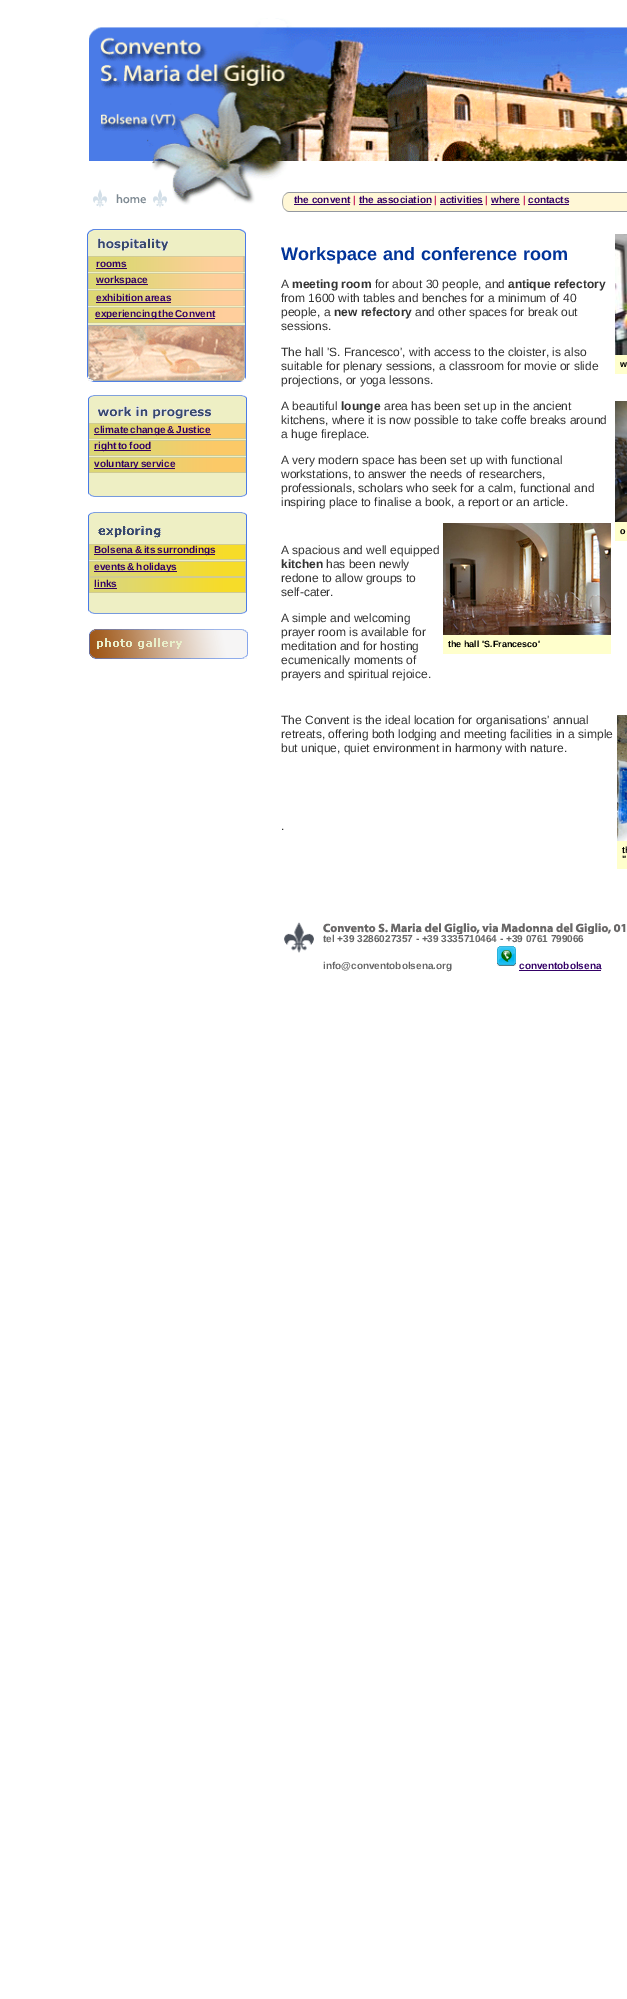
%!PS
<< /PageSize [627 1999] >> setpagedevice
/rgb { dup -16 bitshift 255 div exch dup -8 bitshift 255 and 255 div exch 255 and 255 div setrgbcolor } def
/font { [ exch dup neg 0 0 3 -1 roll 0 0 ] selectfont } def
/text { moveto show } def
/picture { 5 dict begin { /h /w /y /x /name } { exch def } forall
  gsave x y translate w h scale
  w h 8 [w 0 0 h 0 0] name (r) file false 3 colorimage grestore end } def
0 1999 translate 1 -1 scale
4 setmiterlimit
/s1 { /LiberationSans-Bold 10 font 16#330066 rgb } def
/s2 { /LiberationSans-Bold 10 font 16#CC3366 rgb } def
/s3 { /LiberationSans-Regular 12 font 16#333333 rgb } def
/s4 { /LiberationSans-Bold 12 font 16#333333 rgb } def
/s5 { /LiberationSans-Bold 9 font 16#000000 rgb } def
/s6 { /LiberationSans-Bold 10 font 16#666666 rgb } def
16#FFFFFF rgb
0 0 627 1999 rectfill
(pic1.raw) 89 18 538 187 picture
(pic2.raw) 93 189 14 19 picture
(pic3.raw) 116 194 30 10 picture
(pic2.raw) 153 189 14 19 picture
(pic4.raw) 282 192 345 20 picture
s1
(the convent) 294 203 text
294 204 56 1 rectfill
s2
(|) 353 203 text
s1
(the association) 359 203 text
359 204 72 1 rectfill
s2
(|) 434 203 text
s1
(activities) 440 203 text
440 204 43 1 rectfill
s2
(|) 485 203 text
s1
(where) 491 203 text
491 204 29 1 rectfill
s2
(|) 523 203 text
s1
(contacts) 528 203 text
528 204 41 1 rectfill
(pic5.raw) 87 229 159 153 picture
(pic6.raw) 98 238 71 13 picture
(pic7.raw) 88 256 157 16 picture
/LiberationSans-Bold 18 font
16#003399 rgb
281 260 moveto 1 0 32 (Workspace and conference room) widthshow
s3
(A) 281 288 text
s4
(meeting room) 292 288 text
s3
(for about 30 people, and) 375 288 text
s4
(antique refectory) 508 288 text
s3
(from 1600 with tables and benches for a minimum of 40) 281 302 text
(people, a) 281 316 text
s4
(new refectory) 334 316 text
s3
(and other spaces for break out) 415 316 text
(sessions.) 281 330 text
(The hall 'S. Francesco', with access to the cloister, is also) 281 356 text
(suitable for plenary sessions, a classroom for movie or slide) 281 370 text
(projections, or yoga lessons.) 281 384 text
(pic8.raw) 615 234 12 121 picture
16#FFFFCC rgb
615 355 12 19 rectfill
s5
(w) 620 367 text
s3
(A beautiful) 281 410 text
s4
(lounge) 341 410 text
s3
(area has been set up in the ancient) 384 410 text
(kitchens, where it is now possible to take coffe breaks around) 281 424 text
(a huge fireplace.) 281 438 text
(A very modern space has been set up with functional) 281 464 text
(workstations, to answer the needs of researchers,) 281 478 text
(professionals, scholars who seek for a calm, functional and) 281 492 text
(inspiring place to finalise a book, a report or an article.) 281 506 text
(pic9.raw) 615 401 12 121 picture
16#FFFFCC rgb
615 522 12 19 rectfill
s5
(o) 620 534 text
s3
(A spacious and well equipped) 281 554 text
s4
(kitchen) 281 568 text
s3
(has been newly) 326 568 text
(redone to allow groups to) 281 582 text
(self-cater.) 281 596 text
(A simple and welcoming) 281 622 text
(prayer room is available for) 281 636 text
(meditation and for hosting) 281 650 text
(ecumenically moments of) 281 664 text
(prayers and spiritual rejoice.) 281 678 text
(pic10.raw) 443 523 168 112 picture
16#FFFFCC rgb
443 635 168 19 rectfill
s5
(the hall 'S.Francesco') 448 647 text
s3
(The Convent is the ideal location for organisations' annual) 281 724 text
(retreats, offering both lodging and meeting facilities in a simple) 281 738 text
(but unique, quiet environment in harmony with nature.) 281 752 text
(.) 281 830 text
(pic11.raw) 617 715 10 126 picture
16#FFFFCC rgb
617 841 10 28 rectfill
s5
(th) 622 853 text
(") 622 862 text
s1
(rooms) 96 267 text
96 268 31 1 rectfill
(pic7.raw) 88 273 157 16 picture
96 284 52 1 rectfill
(workspace) 96 283 text
(pic7.raw) 88 290 157 16 picture
96 301 moveto -1 0 32 (exhibition areas) widthshow
96 302 75 1 rectfill
(pic7.raw) 88 307 157 16 picture
95 318 120 1 rectfill
95 317 moveto -1 0 32 (experiencing the Convent) widthshow
(pic12.raw) 88 325 157 56 picture
(pic13.raw) 88 395 159 102 picture
(pic14.raw) 97 406 114 13 picture
(pic15.raw) 89 423 157 16 picture
94 434 117 1 rectfill
94 433 moveto -1 0 32 (climate change & Justice) widthshow
(pic15.raw) 89 440 157 16 picture
94 450 57 1 rectfill
94 449 moveto -1 0 32 (right to food) widthshow
(pic15.raw) 89 457 157 16 picture
94 468 81 1 rectfill
94 467 moveto -1 0 32 (voluntary service) widthshow
(pic13.raw) 88 512 159 102 picture
(pic16.raw) 98 526 63 12 picture
(pic17.raw) 89 544 157 16 picture
94 554 121 1 rectfill
94 553 moveto -1 0 32 (Bolsena & its surrondings) widthshow
(pic17.raw) 89 561 157 16 picture
94 571 83 1 rectfill
94 570 moveto -1 0 32 (events & holidays) widthshow
(pic17.raw) 89 577 157 16 picture
(links) 94 587 text
94 588 23 1 rectfill
(pic18.raw) 89 629 159 30 picture
(pic19.raw) 97 638 85 11 picture
(pic20.raw) 284 922 30 31 picture
(pic21.raw) 323 923 303 11 picture
s6
(tel +39 3286027357 - +39 3335710464 - +39 0761 799066) 323 942 text
(info@conventobolsena.org) 323 969 text
(pic22.raw) 497 946 19 20 picture
s1
(conventobolsena) 519 969 text
519 970 82 1 rectfill
showpage
